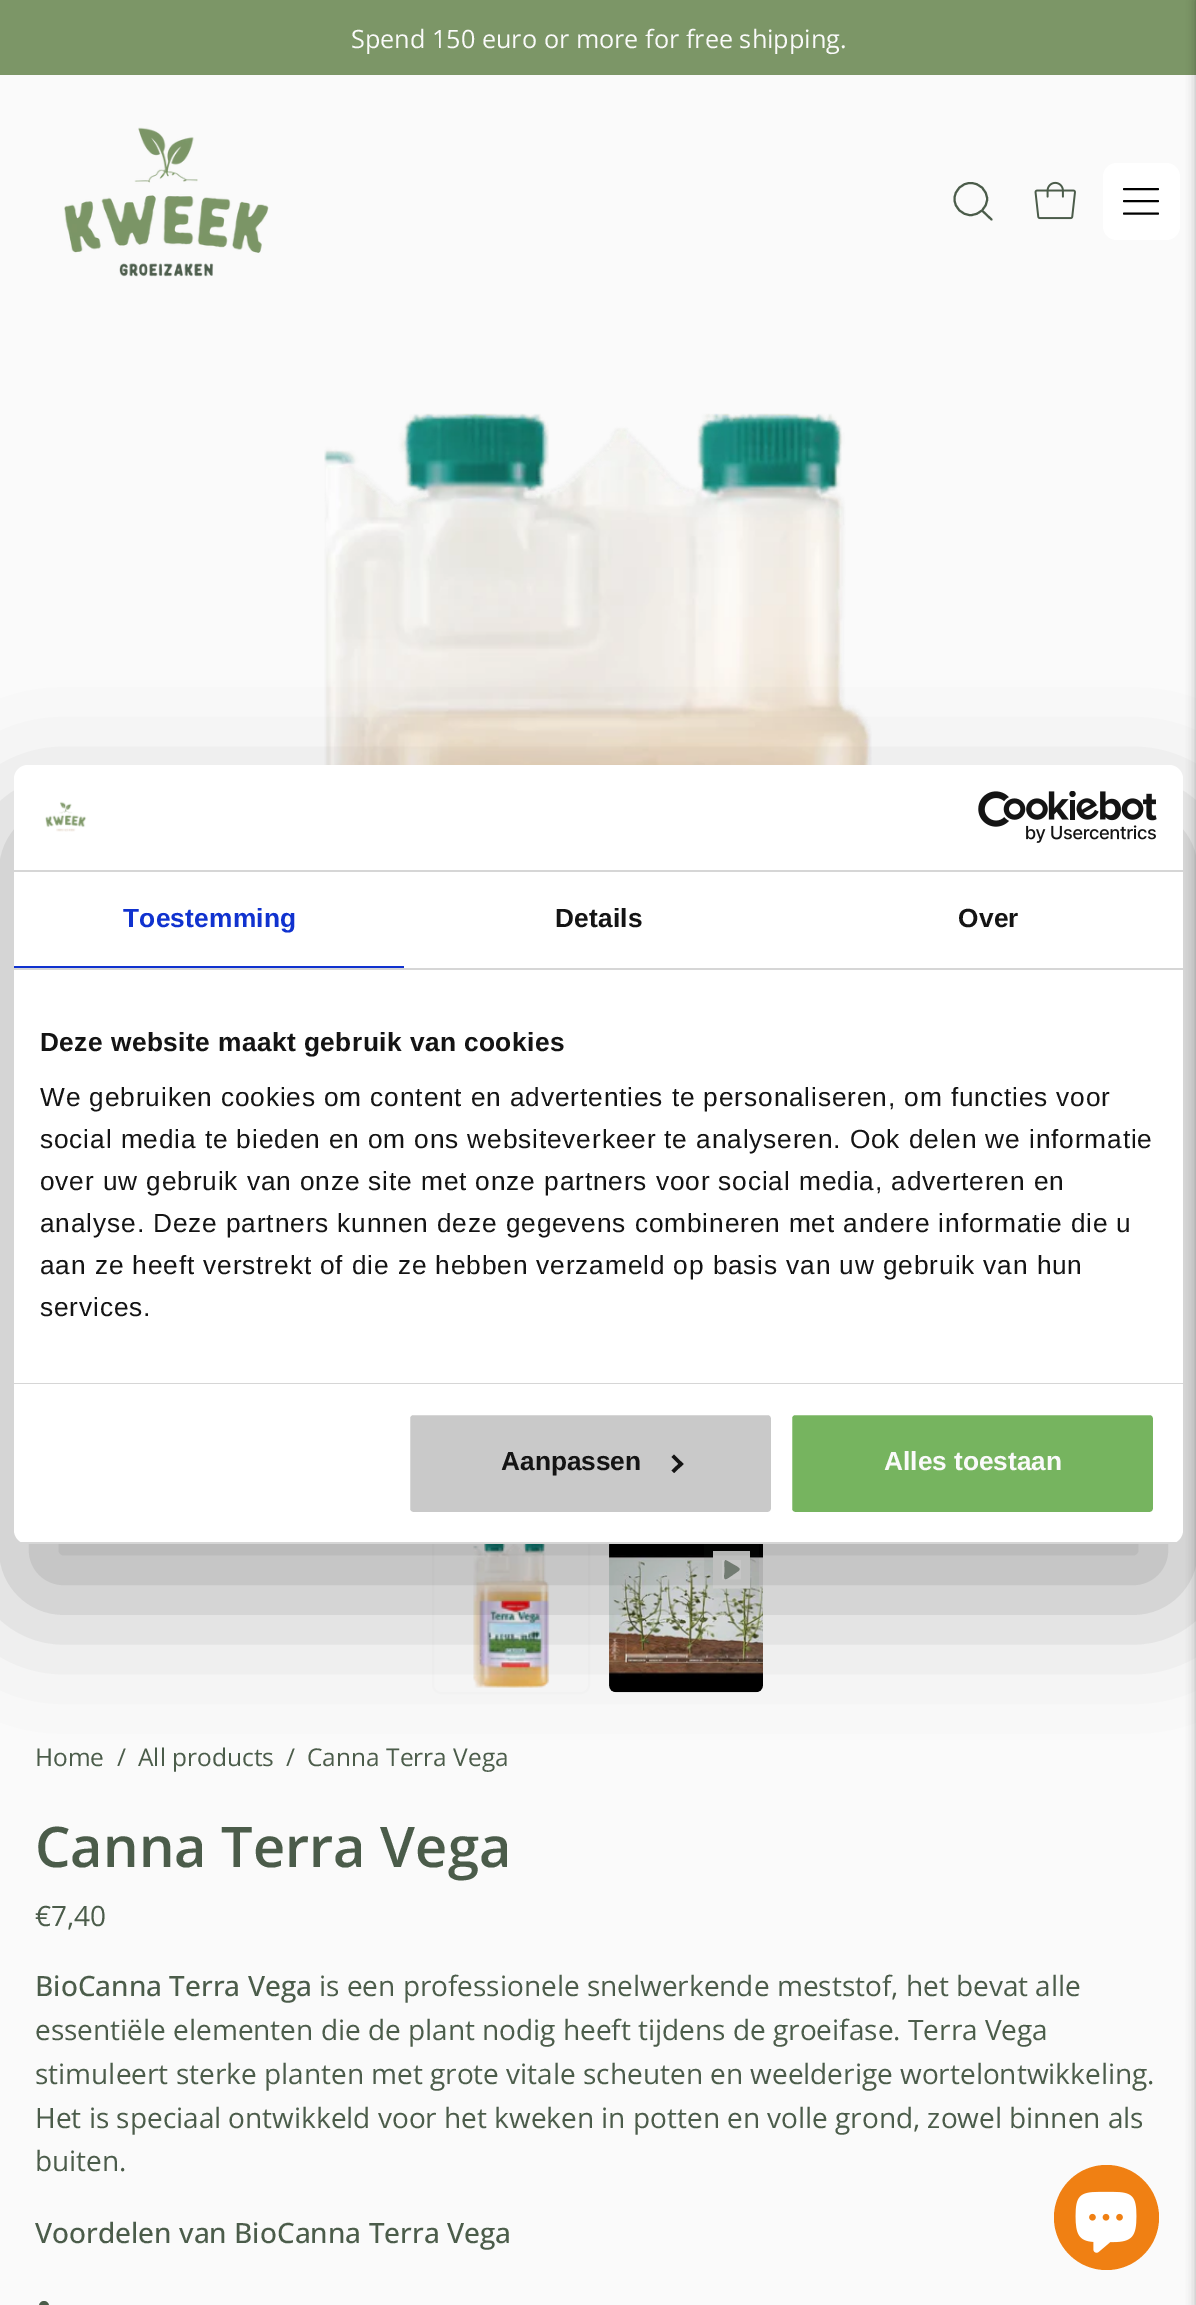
%!PS
<< /PageSize [1196 2305] /PageUsesTransparency true >> setpagedevice
/rgb { dup -16 bitshift 255 div exch dup -8 bitshift 255 and 255 div exch 255 and 255 div setrgbcolor } def
/font { [ exch dup neg 0 0 3 -1 roll 0 0 ] selectfont } def
/text { moveto show } def
/alpha { dup .setfillconstantalpha .setstrokeconstantalpha } def
/circle { newpath 0 360 arc closepath } def
/roundrect { 5 dict begin { /r /h /w /y /x } { exch def } forall
  x r add y moveto x w add y 2 copy h add r arct x w add y h add x 1 index r arct
  x y h add x y r arct x y 2 copy exch w add exch r arct closepath end } def
/shadow { 12 dict begin { /a /b /q /h /w /y /x } { exch def } forall gsave /was 0 def
  9 -2 -9 { dup b mul 4 div /e exch def 1 sub .425 mul 2.718 exch exp 1 add a .99 .min exch div /now exch def
    1 1 now sub 1 was sub div sub alpha /was now def
    w h .min e 2 mul add 0 gt { x e sub y e sub w e 2 mul add h e 2 mul add
      q e add b .6 mul add w h .min 2 div e add .min 0 .max roundrect fill } if } for grestore end } def
/picture { 5 dict begin { /h /w /y /x /name } { exch def } forall
  gsave x y translate w h scale
  w h 8 [w 0 0 h 0 0] name (r) file false 3 colorimage grestore end } def
0 .pushpdf14devicefilter
0 2305 translate 1 -1 scale
4 setmiterlimit
/s1 { /OpenSans-Regular 25.25 font 16#FAFAFA rgb } def
/s2 { /LiberationSans-Bold 26.25 font 16#141414 rgb } def
/s3 { /LiberationSans-Bold 26.25 font 16#FAFAFA rgb } def
/s4 { /OpenSans-Regular 24.5 font 16#4B5C4A rgb } def
/s5 { /OpenSans-SemiBold 56 font 16#4B5C4A rgb } def
/s6 { /OpenSans-Regular 28 font 16#4B5C4A rgb } def
/s7 { /OpenSans-Medium 28 font 16#4B5C4A rgb } def
16#FAFAFA rgb
0 0 1196 2305 rectfill
16#7C9667 rgb
0 0 1196 75 rectfill
s1
(Spend 150 euro or more for free shipping.) 351 48 text
16#000000 rgb
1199 0 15 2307 0 6 0.5 shadow
(pic1.raw) 64 127 205 150 picture
16#4B5C4A rgb
2 setlinewidth
1 setlinecap
1 setlinejoin
970.5 215 moveto 979.5 215 987 208 987 199 curveto 987 190 979.5 183 970.5 183 curveto 962 183 954.5 190 954.5 199 curveto 954.5 208 962 215 970.5 215 curveto closepath 982 210.5 moveto 991.5 219.5 lineto stroke
(pic2.raw) 1034 181 42 39 picture
16#FFFFFF rgb
1103 163 77 77 14 roundrect fill
16#000000 rgb
1124 201 moveto 1158 201 lineto 1124 189 moveto 1158 189 lineto 1124 213.5 moveto 1158 213.5 lineto stroke
(pic5.raw) 324 413 548 352 picture
16#F7F7F7 rgb
0 setlinecap
0 setlinejoin
433 1538 156 155 8 roundrect stroke
(pic6.raw) 473 1544 77 144 picture
(pic7.raw) 609 1544 154 149 picture
16#FAFAFA rgb
713 1587.5 moveto 713 1588.5 lineto 750 1588.5 lineto 750 1551 lineto 713 1551 lineto closepath fill
0.05 alpha
16#4B5C4A rgb
17.8 setlinewidth
713 1587.5 moveto 713 1588.5 lineto 750 1588.5 lineto 750 1551 lineto 713 1551 lineto closepath stroke
1 alpha
16#919B90 rgb
726.5 1560.5 moveto 723.5 1558.5 724.5 1567 724.5 1567 curveto 724.5 1572.5 lineto 724.5 1573.5 723.5 1578 725 1579 curveto 726.5 1579.5 728 1578 729 1577.5 curveto 737 1572 lineto 740.5 1569.5 740.5 1569 737 1566.5 curveto closepath eofill
16#000000 rgb
14 821 1169 779 14 59.5 0.3 shadow
16#FFFFFF rgb
14 765 1169 779 14 roundrect fill
16#D6D6D6 rgb
14 870 1169 2 rectfill
(pic3.raw) 45 801 42 31 picture
(pic4.raw) 978 791 179 52 picture
14 968 1169 2 rectfill
16#1032CF rgb
14 966 390 2 rectfill
/LiberationSans-Bold 26.25 font
123 927 moveto 0.25 0 (Toestemming) ashow
16#141414 rgb
555 927 moveto 0.25 0 (Details) ashow
958 927 moveto 0.25 0 (Over) ashow
16#D6D6D6 rgb
14 1383 1169 1 rectfill
16#141414 rgb
40 1051 moveto 0.45 0 (Deze website maakt gebruik van cookies) ashow
/LiberationSans-Regular 26.25 font
40 1106 moveto 0.88 0 (We gebruiken cookies om content en advertenties te personaliseren, om functies voor) ashow
40 1148 moveto 0.88 0 (social media te bieden en om ons websiteverkeer te analyseren. Ook delen we informatie) ashow
40 1190 moveto 0.88 0 (over uw gebruik van onze site met onze partners voor social media, adverteren en) ashow
40 1232 moveto 0.88 0 (analyse. Deze partners kunnen deze gegevens combineren met andere informatie die u) ashow
40 1274 moveto 0.88 0 (aan ze heeft verstrekt of die ze hebben verzameld op basis van uw gebruik van hun) ashow
40 1316 moveto 0.88 0 (services.) ashow
gsave
14 765 1169 779 14 roundrect clip newpath
16#D6D6D6 rgb
14 1542 1169 2 rectfill
grestore
16#C9C9C9 rgb
408 1413 365 101 5 roundrect gsave fill grestore
16#FFFFFF rgb
4 setlinewidth
stroke
s2
(Aanpassen) 501 1470 text
674 1454.5 moveto 683.5 1464 lineto 681 1466.5 lineto 671.5 1457 lineto closepath fill
681 1461.5 moveto 683.5 1464 lineto 674 1473 lineto 671.5 1470.5 lineto closepath fill
16#76B45F rgb
790 1413 365 101 5 roundrect gsave fill grestore
16#FFFFFF rgb
stroke
s3
(Alles toestaan) 884 1470 text
s4
(Home) 35 1766 text
(/) 117 1766 text
(All products) 138 1766 text
(/) 286 1766 text
(Canna Terra Vega) 307 1766 text
s5
(Canna Terra Vega) 35 1867 text
s6
(€7,40) 35 1926 text
s7
(BioCanna Terra Vega) 35 1996 text
s6
(is een professionele snelwerkende meststof, het bevat alle) 319 1996 text
(essentiële elementen die de plant nodig heeft tijdens de groeifase. Terra Vega) 35 2040 text
(stimuleert sterke planten met grote vitale scheuten en weelderige wortelontwikkeling.) 35 2084 text
(Het is speciaal ontwikkeld voor het kweken in potten en volle grond, zowel binnen als) 35 2128 text
(buiten.) 35 2171 text
s7
(Voordelen van BioCanna Terra Vega) 35 2243 text
39 2301 10 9 5 roundrect fill
16#F08013 rgb
1106.5 2217.5 52.5 circle fill
(pic8.raw) 1075 2191 62 62 picture
.poppdf14devicefilter showpage
